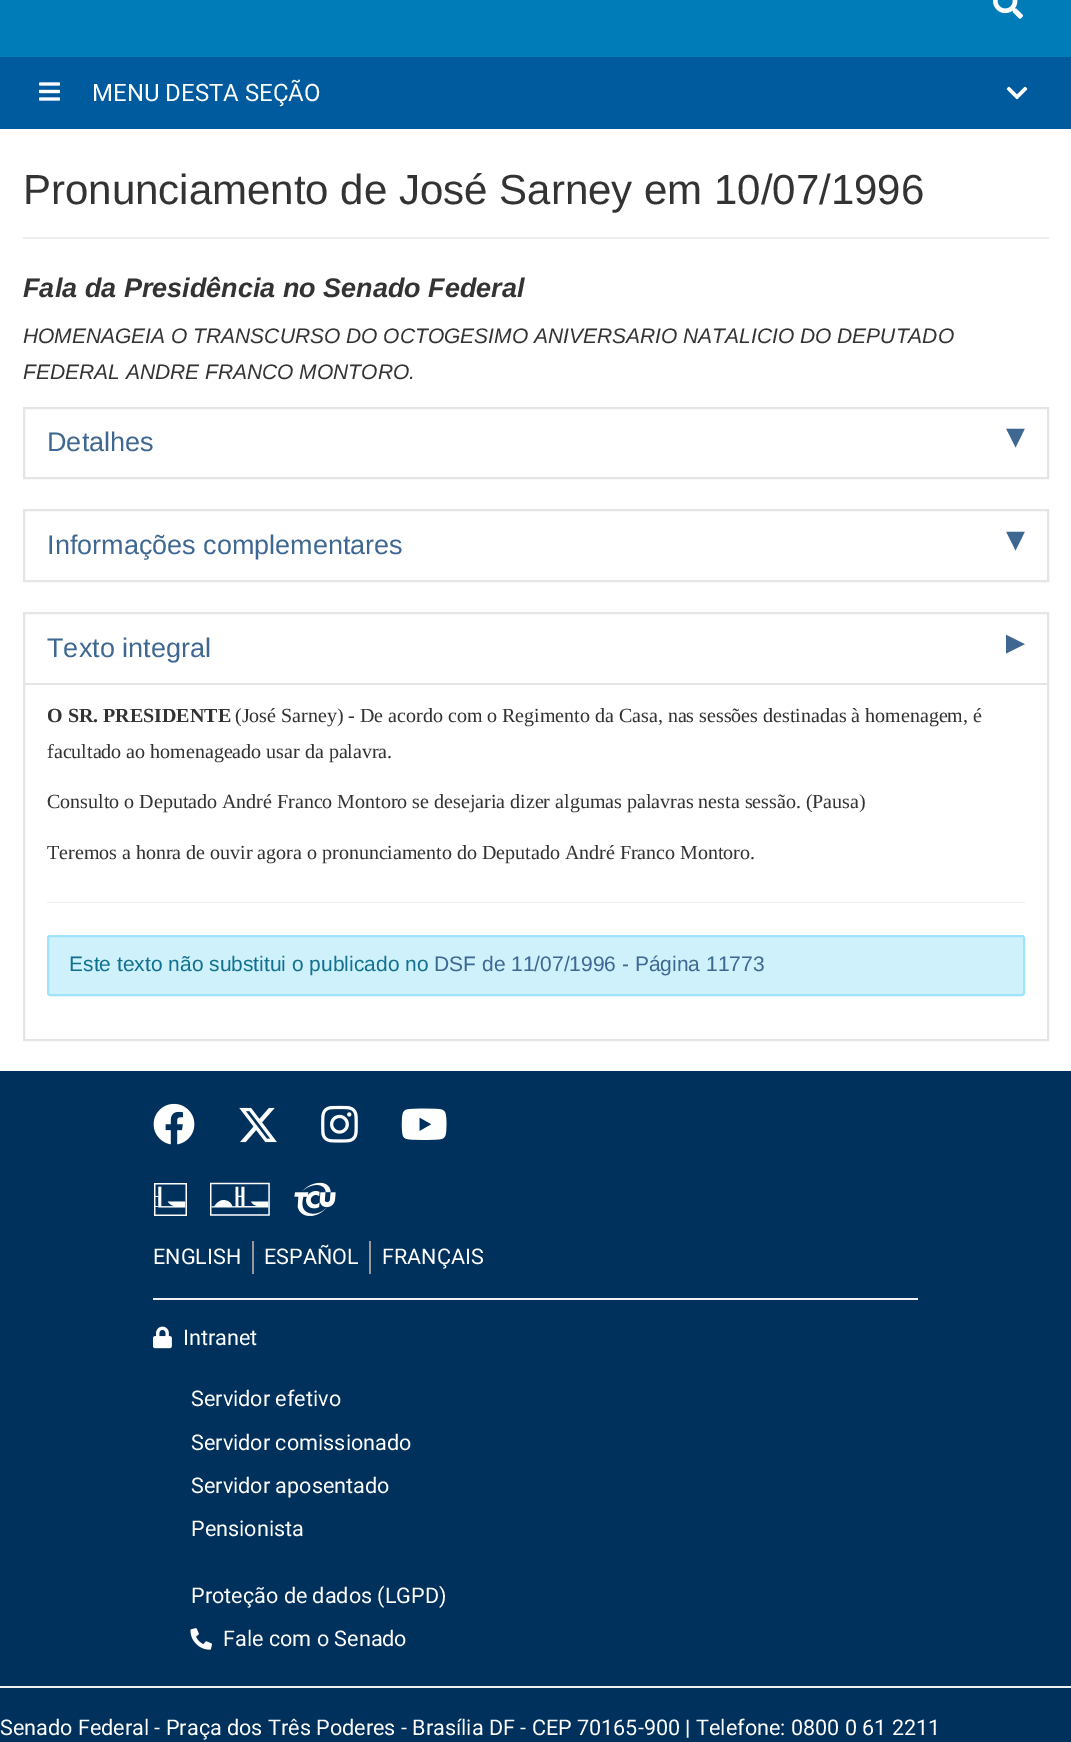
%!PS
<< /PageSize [1071 1742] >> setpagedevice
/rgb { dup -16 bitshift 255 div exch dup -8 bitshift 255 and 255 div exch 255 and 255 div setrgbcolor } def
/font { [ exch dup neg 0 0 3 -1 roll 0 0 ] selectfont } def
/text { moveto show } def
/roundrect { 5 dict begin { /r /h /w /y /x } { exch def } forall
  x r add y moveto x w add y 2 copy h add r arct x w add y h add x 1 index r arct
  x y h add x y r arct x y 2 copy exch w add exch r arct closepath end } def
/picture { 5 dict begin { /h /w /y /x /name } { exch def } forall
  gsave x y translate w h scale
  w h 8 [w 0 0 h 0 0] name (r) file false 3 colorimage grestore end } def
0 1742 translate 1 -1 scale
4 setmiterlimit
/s1 { /Roboto-Regular 24 font 16#FFFFFF rgb } def
/s2 { /LiberationSans-Regular 42 font 16#333333 rgb } def
/s3 { /LiberationSans-BoldItalic 27 font 16#333333 rgb } def
/s4 { /LiberationSans-Italic 21 font 16#333333 rgb } def
/s5 { /LiberationSans-Regular 27 font 16#3E6892 rgb } def
/s6 { /DejaVuSans-Regular 38 font 16#3E6892 rgb } def
/s7 { /LiberationSerif-Bold 20 font 16#333333 rgb } def
/s8 { /LiberationSerif-Regular 20 font 16#333333 rgb } def
/s9 { /LiberationSans-Regular 21 font 16#12718F rgb } def
/s10 { /LiberationSans-Regular 21 font 16#3E6892 rgb } def
/s11 { /Roboto-Regular 21.6 font 16#FFFFFF rgb } def
16#FFFFFF rgb
0 0 1071 1742 rectfill
16#007DB8 rgb
0 0 1071 57 rectfill
(pic1.raw) 993 0 30 19 picture
16#005B9E rgb
0 57 1071 72 rectfill
(pic2.raw) 39 82 21 19 picture
s1
(MENU DESTA SEÇÃO) 92 101 text
(pic3.raw) 1006 86 22 14 picture
16#EEEEEE rgb
23 237 1026 2 rectfill
s2
(Pronunciamento de José Sarney em 10/07/1996) 23 204 text
s3
(Fala da Presidência no Senado Federal) 23 297 text
s4
(HOMENAGEIA O TRANSCURSO DO OCTOGESIMO ANIVERSARIO NATALICIO DO DEPUTADO) 23 343 text
(FEDERAL ANDRE FRANCO MONTORO.) 23 379 text
16#E5E5E5 rgb
2 setlinewidth
24 408 1024 70 rectstroke
s5
(Detalhes) 47 451 text
s6
(▾) 1006 448 text
16#E5E5E5 rgb
24 510 1024 71 rectstroke
s5
(Informações complementares) 47 554 text
s6
(▾) 1006 551 text
16#E5E5E5 rgb
24 613 1024 427 rectstroke
s5
(Texto integral) 47 657 text
s6
(▸) 1006 654 text
16#E5E5E5 rgb
24 683 1023 2 rectfill
s7
(O SR. PRESIDENTE) 47 722 text
s8
(\(José Sarney\) - De acordo com o Regimento da Casa, nas sessões destinadas à homenagem, é) 235 722 text
(facultado ao homenageado usar da palavra.) 47 758 text
(Consulto o Deputado André Franco Montoro se desejaria dizer algumas palavras nesta sessão. \(Pausa\)) 47 808 text
(Teremos a honra de ouvir agora o pronunciamento do Deputado André Franco Montoro.) 47 859 text
16#EEEEEE rgb
47 902 978 1 rectfill
16#CEF1FC rgb
48 936 976 59 2 roundrect gsave fill grestore
16#9EE3F9 rgb
stroke
s9
(Este texto não substitui o publicado no) 69 971 text
s10
(DSF de 11/07/1996 - Página 11773) 434 971 text
16#00305C rgb
0 1071 1071 671 rectfill
(pic4.raw) 153 1103 42 42 picture
(pic5.raw) 239 1107 38 36 picture
(pic6.raw) 321 1105 37 38 picture
(pic7.raw) 401 1108 46 32 picture
(pic8.raw) 154 1183 33 33 picture
(pic9.raw) 210 1182 60 34 picture
(pic10.raw) 294 1182 42 34 picture
s11
(ENGLISH) 153 1264 text
16#999999 rgb
252 1241 2 33 rectfill
s11
(ESPAÑOL) 264 1264 text
16#999999 rgb
369 1241 2 33 rectfill
s11
(FRANÇAIS) 382 1264 text
16#F1F1F1 rgb
153 1298 765 2 rectfill
(pic11.raw) 153 1326 19 23 picture
s11
(Intranet) 183 1345 text
(Servidor efetivo) 191 1406 text
(Servidor comissionado) 191 1450 text
(Servidor aposentado) 191 1493 text
(Pensionista) 191 1536 text
(Proteção de dados \(LGPD\)) 191 1603 text
(pic12.raw) 190 1628 22 22 picture
(Fale com o Senado) 223 1646 text
16#F1F1F1 rgb
0 1686 1071 2 rectfill
s11
(Senado Federal - Praça dos Três Poderes - Brasília DF - CEP 70165-900 | Telefone: 0800 0 61 2211) 0 1735 text
showpage
